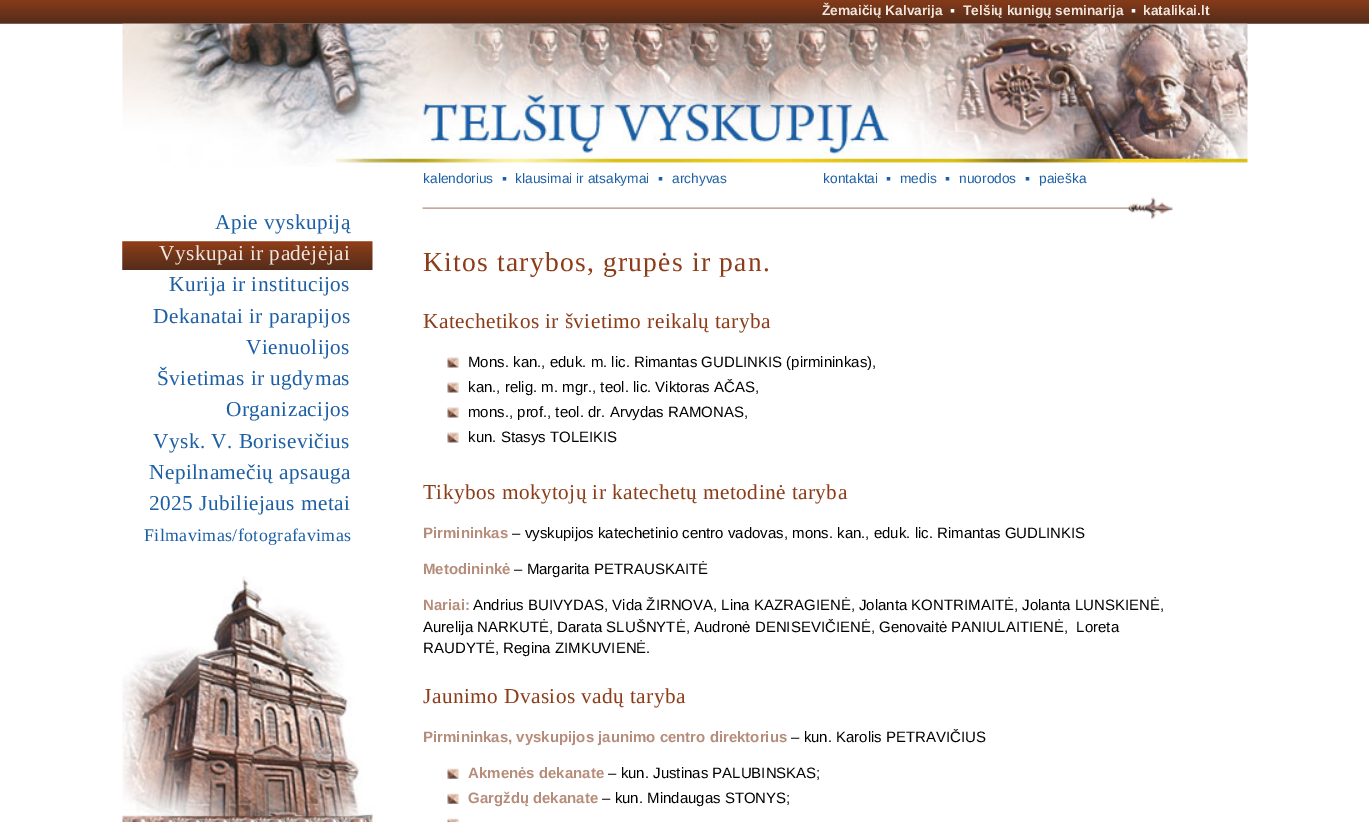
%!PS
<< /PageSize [1369 822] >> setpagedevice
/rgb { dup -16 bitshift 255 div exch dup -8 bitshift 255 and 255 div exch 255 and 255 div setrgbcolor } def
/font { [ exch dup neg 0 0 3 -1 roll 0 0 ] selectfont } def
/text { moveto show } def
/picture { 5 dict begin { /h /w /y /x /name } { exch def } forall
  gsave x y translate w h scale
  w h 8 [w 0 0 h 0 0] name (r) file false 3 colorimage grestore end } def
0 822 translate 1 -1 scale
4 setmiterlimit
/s1 { /LiberationSans-Bold 13.75 font 16#F0E6DD rgb } def
/s2 { /LiberationSans-Bold 13.75 font 16#FFFFFF rgb } def
/s3 { /LiberationSans-Regular 13.75 font 16#1C5FA4 rgb } def
/s4 { /LiberationSans-Regular 15 font 16#000000 rgb } def
/s5 { /LiberationSans-Bold 15 font 16#B68C7A rgb } def
16#FFFFFF rgb
0 0 1369 822 rectfill
(pic1.raw) 0 0 1369 24 picture
s1
(Žemaičių Kalvarija) 822 15 text
s2
(▪) 950 15 text
s1
(Telšių kunigų seminarija) 963 15 text
s2
(▪) 1131 15 text
s1
(katalikai.lt) 1143 15 text
(pic2.raw) 122 23 1126 144 picture
/LiberationSerif-Regular 21.25 font
16#1C5FA4 rgb
215 229 moveto 0.45 0 (Apie vyskupiją) ashow
(pic3.raw) 122 241 1 29 picture
(pic4.raw) 122 241 251 29 picture
16#F0E6DD rgb
159 260 moveto 0.45 0 (Vyskupai ir padėjėjai) ashow
16#1C5FA4 rgb
169 291 moveto 0.45 0 (Kurija ir institucijos) ashow
153 323 moveto 0.45 0 (Dekanatai ir parapijos) ashow
246 354 moveto 0.45 0 (Vienuolijos) ashow
157 385 moveto 0.45 0 (Švietimas ir ugdymas) ashow
226 416 moveto 0.45 0 (Organizacijos) ashow
153 448 moveto 0.45 0 (Vysk. V. Borisevičius) ashow
149 479 moveto 0.45 0 (Nepilnamečių apsauga) ashow
149 510 moveto 0.45 0 (2025 Jubiliejaus metai) ashow
/LiberationSerif-Regular 17.75 font
144 541 moveto 0.45 0 (Filmavimas/fotografavimas) ashow
(pic5.raw) 122 576 251 246 picture
s3
(kalendorius) 423 183 text
(▪) 502 183 text
(klausimai ir atsakymai) 515 183 text
(▪) 658 183 text
(archyvas) 672 183 text
(kontaktai) 823 183 text
(▪) 886 183 text
(medis) 900 183 text
(▪) 945 183 text
(nuorodos) 959 183 text
(▪) 1025 183 text
(paieška) 1039 183 text
(pic6.raw) 422 197 751 22 picture
/LiberationSerif-Regular 27.5 font
16#8C3C18 rgb
423 271 moveto 1.25 0 (Kitos tarybos, grupės ir pan.) ashow
/LiberationSerif-Regular 21.25 font
423 328 moveto 0.45 0 (Katechetikos ir švietimo reikalų taryba) ashow
(pic7.raw) 447 357 12 11 picture
s4
(Mons. kan., eduk. m. lic. Rimantas GUDLINKIS \(pirmininkas\),) 468 367 text
(pic7.raw) 447 382 12 11 picture
(kan., relig. m. mgr., teol. lic. Viktoras AČAS,) 468 392 text
(pic7.raw) 447 407 12 11 picture
(mons., prof., teol. dr. Arvydas RAMONAS,) 468 417 text
(pic7.raw) 447 432 12 11 picture
(kun. Stasys TOLEIKIS) 468 442 text
/LiberationSerif-Regular 21.25 font
16#8C3C18 rgb
423 499 moveto 0.45 0 (Tikybos mokytojų ir katechetų metodinė taryba) ashow
s5
(Pirmininkas) 423 538 text
s4
(– vyskupijos katechetinio centro vadovas, mons. kan., eduk. lic. Rimantas GUDLINKIS) 512 538 text
s5
(Metodininkė) 423 574 text
s4
(– Margarita PETRAUSKAITĖ) 514 574 text
s5
(Nariai:) 423 610 text
s4
(Andrius BUIVYDAS, Vida ŽIRNOVA, Lina KAZRAGIENĖ, Jolanta KONTRIMAITĖ, Jolanta LUNSKIENĖ,) 473 610 text
(Aurelija NARKUTĖ, Darata SLUŠNYTĖ, Audronė DENISEVIČIENĖ, Genovaitė PANIULAITIENĖ,  Loreta) 423 632 text
(RAUDYTĖ, Regina ZIMKUVIENĖ.) 423 653 text
/LiberationSerif-Regular 21.25 font
16#8C3C18 rgb
423 703 moveto 0.45 0 (Jaunimo Dvasios vadų taryba) ashow
s5
(Pirmininkas, vyskupijos jaunimo centro direktorius) 423 742 text
s4
(– kun. Karolis PETRAVIČIUS) 791 742 text
(pic8.raw) 447 768 12 11 picture
s5
(Akmenės dekanate) 468 778 text
s4
(– kun. Justinas PALUBINSKAS;) 608 778 text
(pic8.raw) 447 793 12 11 picture
s5
(Gargždų dekanate) 468 803 text
s4
(– kun. Mindaugas STONYS;) 602 803 text
(pic9.raw) 447 818 12 4 picture
showpage
